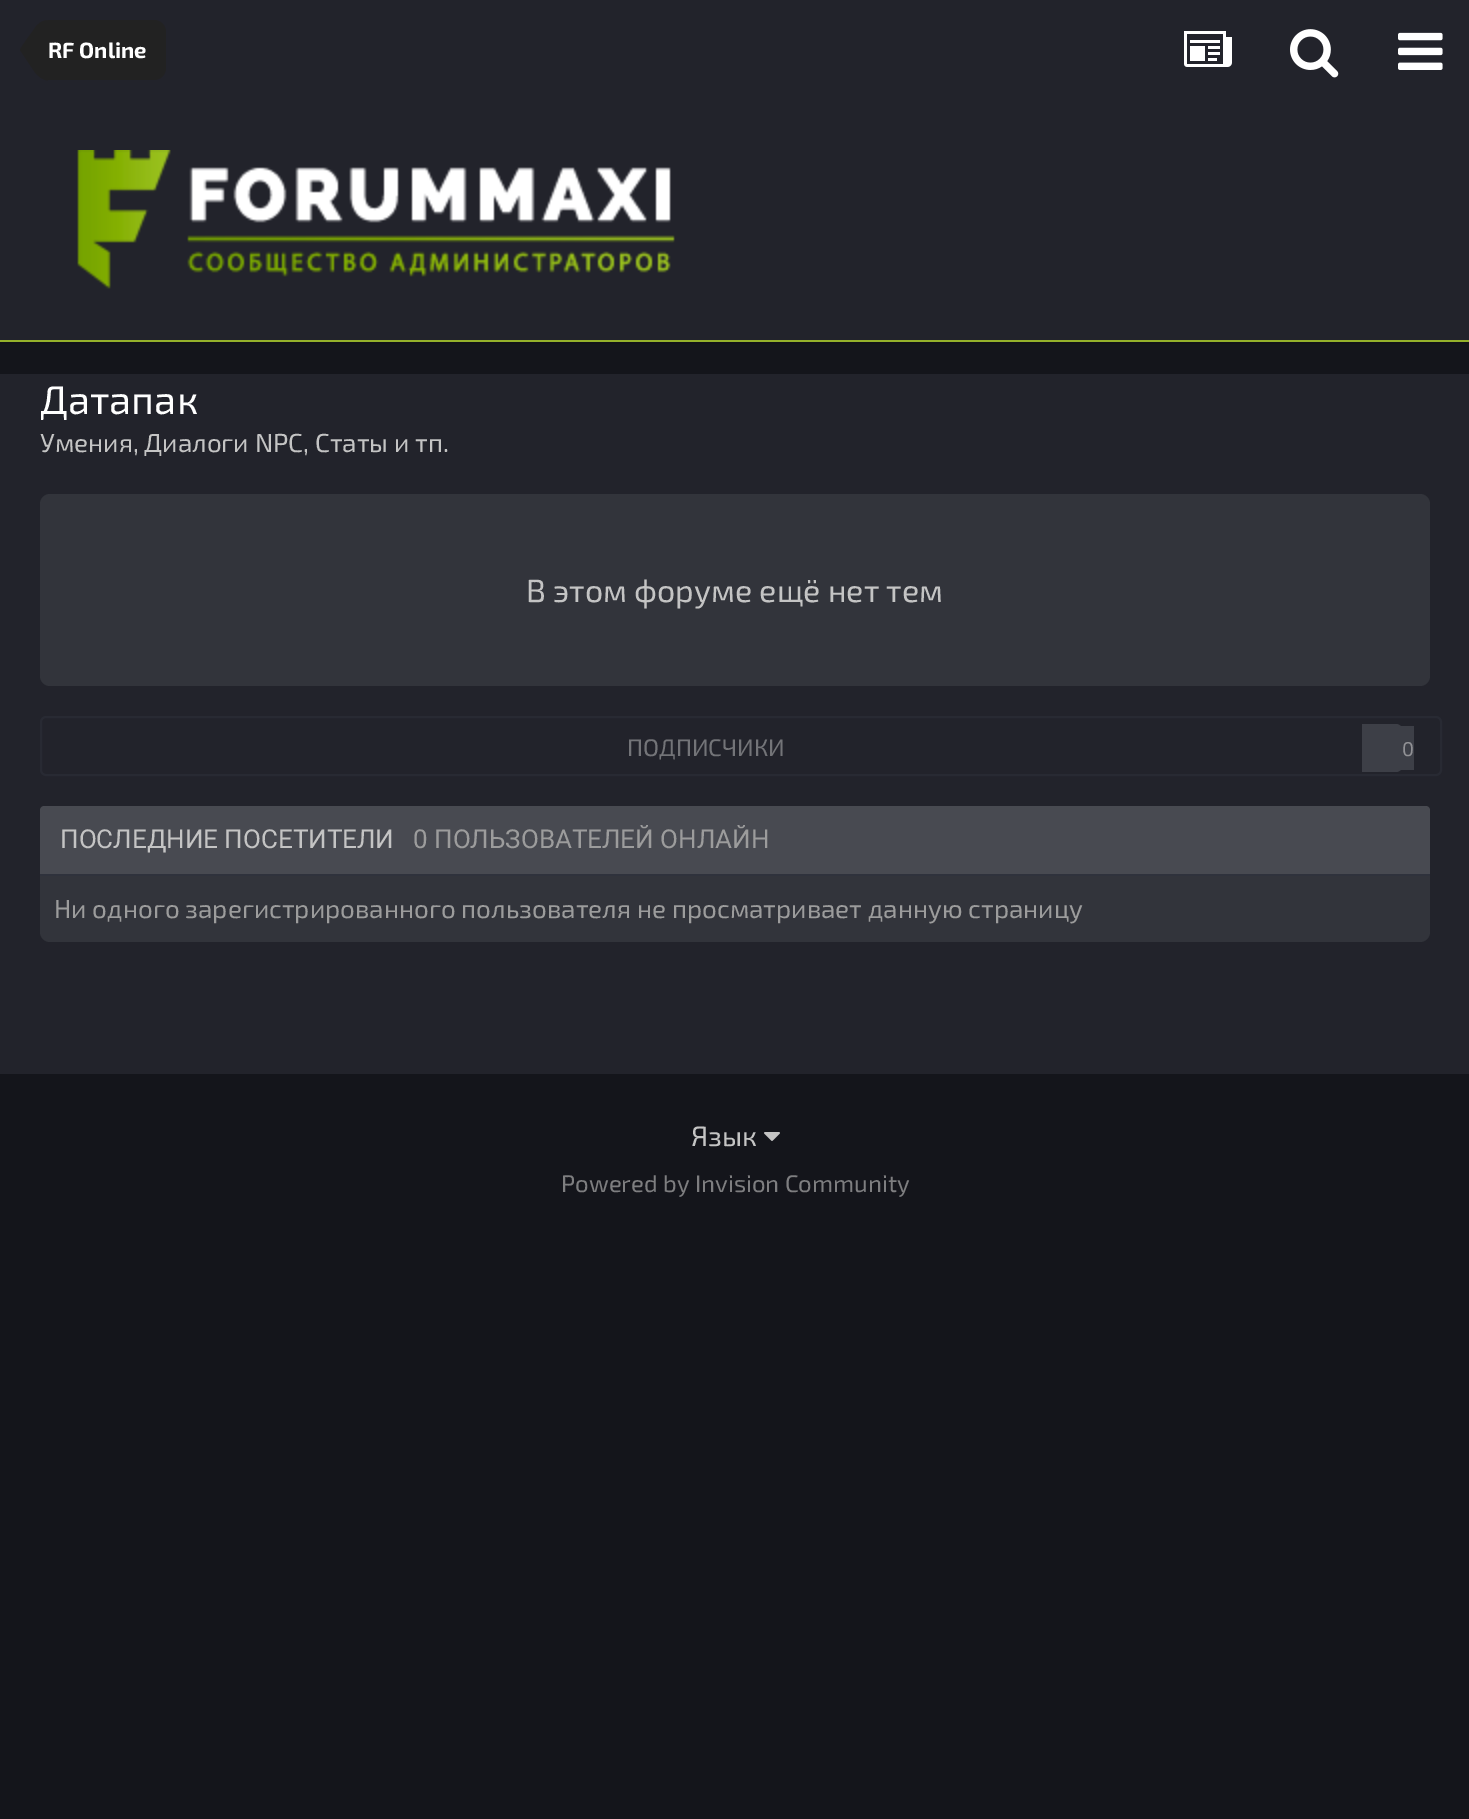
%!PS
<< /PageSize [1469 1819] >> setpagedevice
/rgb { dup -16 bitshift 255 div exch dup -8 bitshift 255 and 255 div exch 255 and 255 div setrgbcolor } def
/font { [ exch dup neg 0 0 3 -1 roll 0 0 ] selectfont } def
/text { moveto show } def
/roundrect { 5 dict begin { /r /h /w /y /x } { exch def } forall
  x r add y moveto x w add y 2 copy h add r arct x w add y h add x 1 index r arct
  x y h add x y r arct x y 2 copy exch w add exch r arct closepath end } def
/picture { 5 dict begin { /h /w /y /x /name } { exch def } forall
  gsave x y translate w h scale
  w h 8 [w 0 0 h 0 0] name (r) file false 3 colorimage grestore end } def
0 1819 translate 1 -1 scale
4 setmiterlimit
/s1 { /Exo2-Bold 22 font 16#FFFFFF rgb } def
/s2 { /Exo2-Regular 40 font 16#FFFFFF rgb } def
/s3 { /Exo2-Regular 26 font 16#C4C4C4 rgb } def
/s4 { /Exo2-Regular 32 font 16#C4C4C4 rgb } def
/s5 { /Exo2-Regular 24 font 16#737478 rgb } def
/s6 { /Exo2-Regular 20 font 16#919195 rgb } def
/s7 { /Roboto-Regular 26 font 16#C4C4C4 rgb } def
/s8 { /Roboto-Regular 26 font 16#9C9C9C rgb } def
/s9 { /Exo2-Regular 26 font 16#9C9C9C rgb } def
/s10 { /Exo2-Regular 28 font 16#C4C4C4 rgb } def
/s11 { /Exo2-Regular 24 font 16#7E7E80 rgb } def
16#14151B rgb
0 0 1469 1819 rectfill
16#121318 rgb
0 342 1469 2 rectfill
16#22232B rgb
0 0 1469 340 rectfill
(pic1.raw) 77 150 598 139 picture
16#222222 rgb
48 20 moveto 154 20 lineto 160.5 20 166 25.5 166 32 curveto 166 68 lineto 166 74.5 160.5 80 154 80 curveto 48 80 lineto closepath fill
48 50 moveto 48 80.5 lineto 43.5 80 38.5 77.5 34 71 curveto 20 50 lineto closepath 48 50 moveto 20 50 lineto 20 48.5 31 33.5 32.5 31.5 curveto 37 25 lineto 38.5 24 lineto 41 21.5 44.5 20 48 20.5 curveto closepath fill
s1
(RF Online) 48 58 text
(pic2.raw) 1184 31 48 36 picture
(pic3.raw) 1290 29 49 49 picture
(pic4.raw) 1398 32 45 38 picture
16#95B12B rgb
0 340 1469 2 rectfill
16#22232B rgb
0 374 1469 700 rectfill
s2
(Датапак) 40 414 text
s3
(Умения, Диалоги NPC, Статы и тп.) 40 452 text
16#32343B rgb
40 494 1390 192 10 roundrect fill
s4
(В этом форуме ещё нет тем) 526 602 text
16#282A33 rgb
2 setlinewidth
41 717 1400 58 5 roundrect stroke
s5
(ПОДПИСЧИКИ) 627 756 text
16#3D3F47 rgb
1400 726 14 44 rectfill
s6
(0) 1402 756 text
16#3D3F47 rgb
1362 724 moveto 1396 724 lineto 1399.5 724 1402 726.5 1402 730 curveto 1402 766 lineto 1402 769.5 1399.5 772 1396 772 curveto 1362 772 lineto closepath fill
16#32343B rgb
40 806 1390 136 10 roundrect fill
16#2F323C rgb
40 874 1390 2 rectfill
16#484A51 rgb
44 806 moveto 1426 806 lineto 1428 806 1430 808 1430 810 curveto 1430 874 lineto 40 874 lineto 40 810 lineto 40 808 42 806 44 806 curveto closepath fill
s7
(ПОСЛЕДНИЕ ПОСЕТИТЕЛИ) 60 848 text
s8
(0 ПОЛЬЗОВАТЕЛЕЙ ОНЛАЙН) 413 848 text
s9
(Ни одного зарегистрированного пользователя не просматривает данную страницу) 54 918 text
s10
(Язык) 691 1146 text
(pic5.raw) 764 1132 16 9 picture
s11
(Powered by Invision Community) 561 1192 text
showpage
